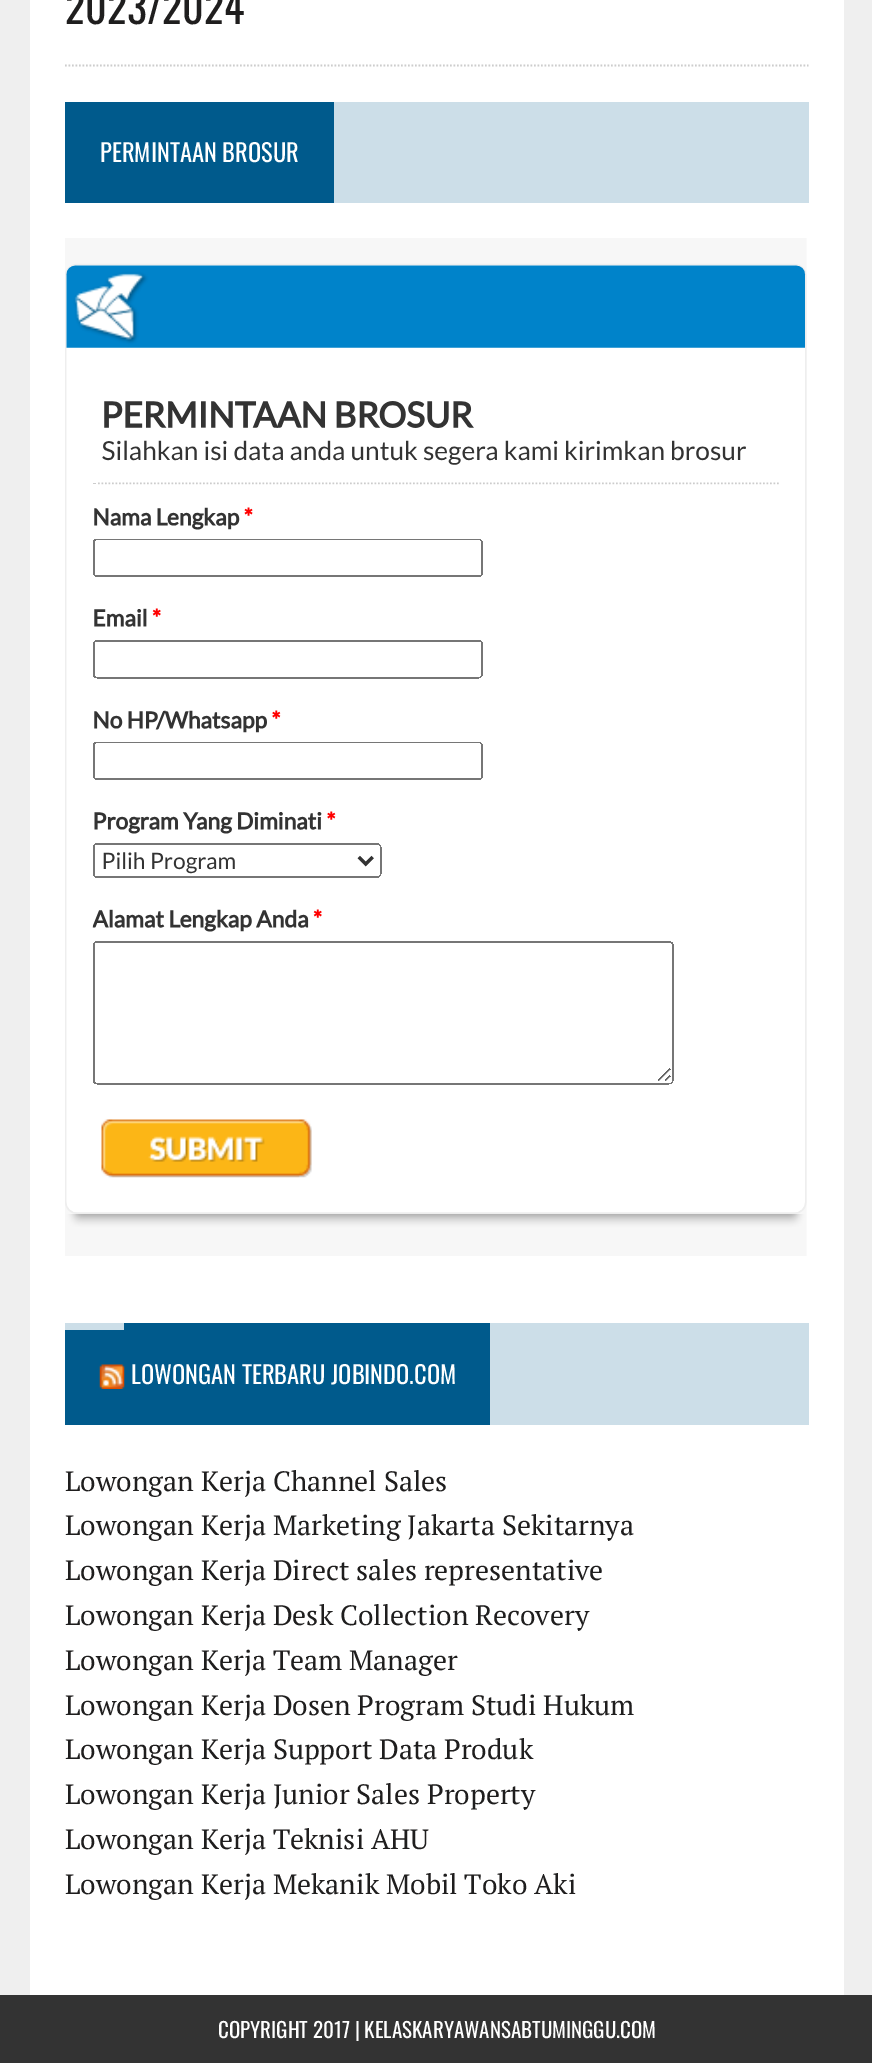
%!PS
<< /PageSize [872 2063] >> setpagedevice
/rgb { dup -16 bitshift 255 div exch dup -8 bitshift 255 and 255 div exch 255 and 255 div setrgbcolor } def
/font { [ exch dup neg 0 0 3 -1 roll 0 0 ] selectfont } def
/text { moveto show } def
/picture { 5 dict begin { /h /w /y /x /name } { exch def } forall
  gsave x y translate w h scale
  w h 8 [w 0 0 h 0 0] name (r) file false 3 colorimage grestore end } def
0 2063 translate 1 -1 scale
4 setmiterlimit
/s1 { /Oswald-Regular 42 font 16#1F1E1E rgb } def
/s2 { /Oswald-Regular 24.5 font 16#FFFFFF rgb } def
/s3 { /PTSerif-Regular 28 font 16#1F1E1E rgb } def
/s4 { /Oswald-Regular 21 font 16#FFFFFF rgb } def
16#EFEFEF rgb
0 0 872 2063 rectfill
16#FFFFFF rgb
30 0 814 1995 rectfill
s1
(2023/2024) 65 24 text
16#CDCDCD rgb
1.8 setlinewidth
[1.75 1.75] 0 setdash
65 65.5 moveto 808.5 65.5 lineto stroke
16#CCDEE8 rgb
334 102 475 101 rectfill
16#005A8C rgb
65 102 269 101 rectfill
s2
(PERMINTAAN BROSUR) 100 162 text
(pic1.raw) 65 238 742 1018 picture
16#CCDEE8 rgb
65 1323 744 102 rectfill
16#005A8C rgb
65 1330 59 95 rectfill
124 1323 366 102 rectfill
(pic2.raw) 99 1364 26 25 picture
s2
(LOWONGAN TERBARU JOBINDO.COM) 131 1384 text
s3
(Lowongan Kerja Channel Sales) 65 1491 text
(Lowongan Kerja Marketing Jakarta Sekitarnya) 65 1535 text
(Lowongan Kerja Direct sales representative) 65 1580 text
(Lowongan Kerja Desk Collection Recovery) 65 1625 text
(Lowongan Kerja Team Manager) 65 1670 text
(Lowongan Kerja Dosen Program Studi Hukum) 65 1715 text
(Lowongan Kerja Support Data Produk) 65 1759 text
(Lowongan Kerja Junior Sales Property) 65 1804 text
(Lowongan Kerja Teknisi AHU) 65 1849 text
(Lowongan Kerja Mekanik Mobil Toko Aki) 65 1894 text
16#333333 rgb
0 1995 872 68 rectfill
s4
(COPYRIGHT 2017 | KELASKARYAWANSABTUMINGGU.COM) 218 2038 text
showpage
